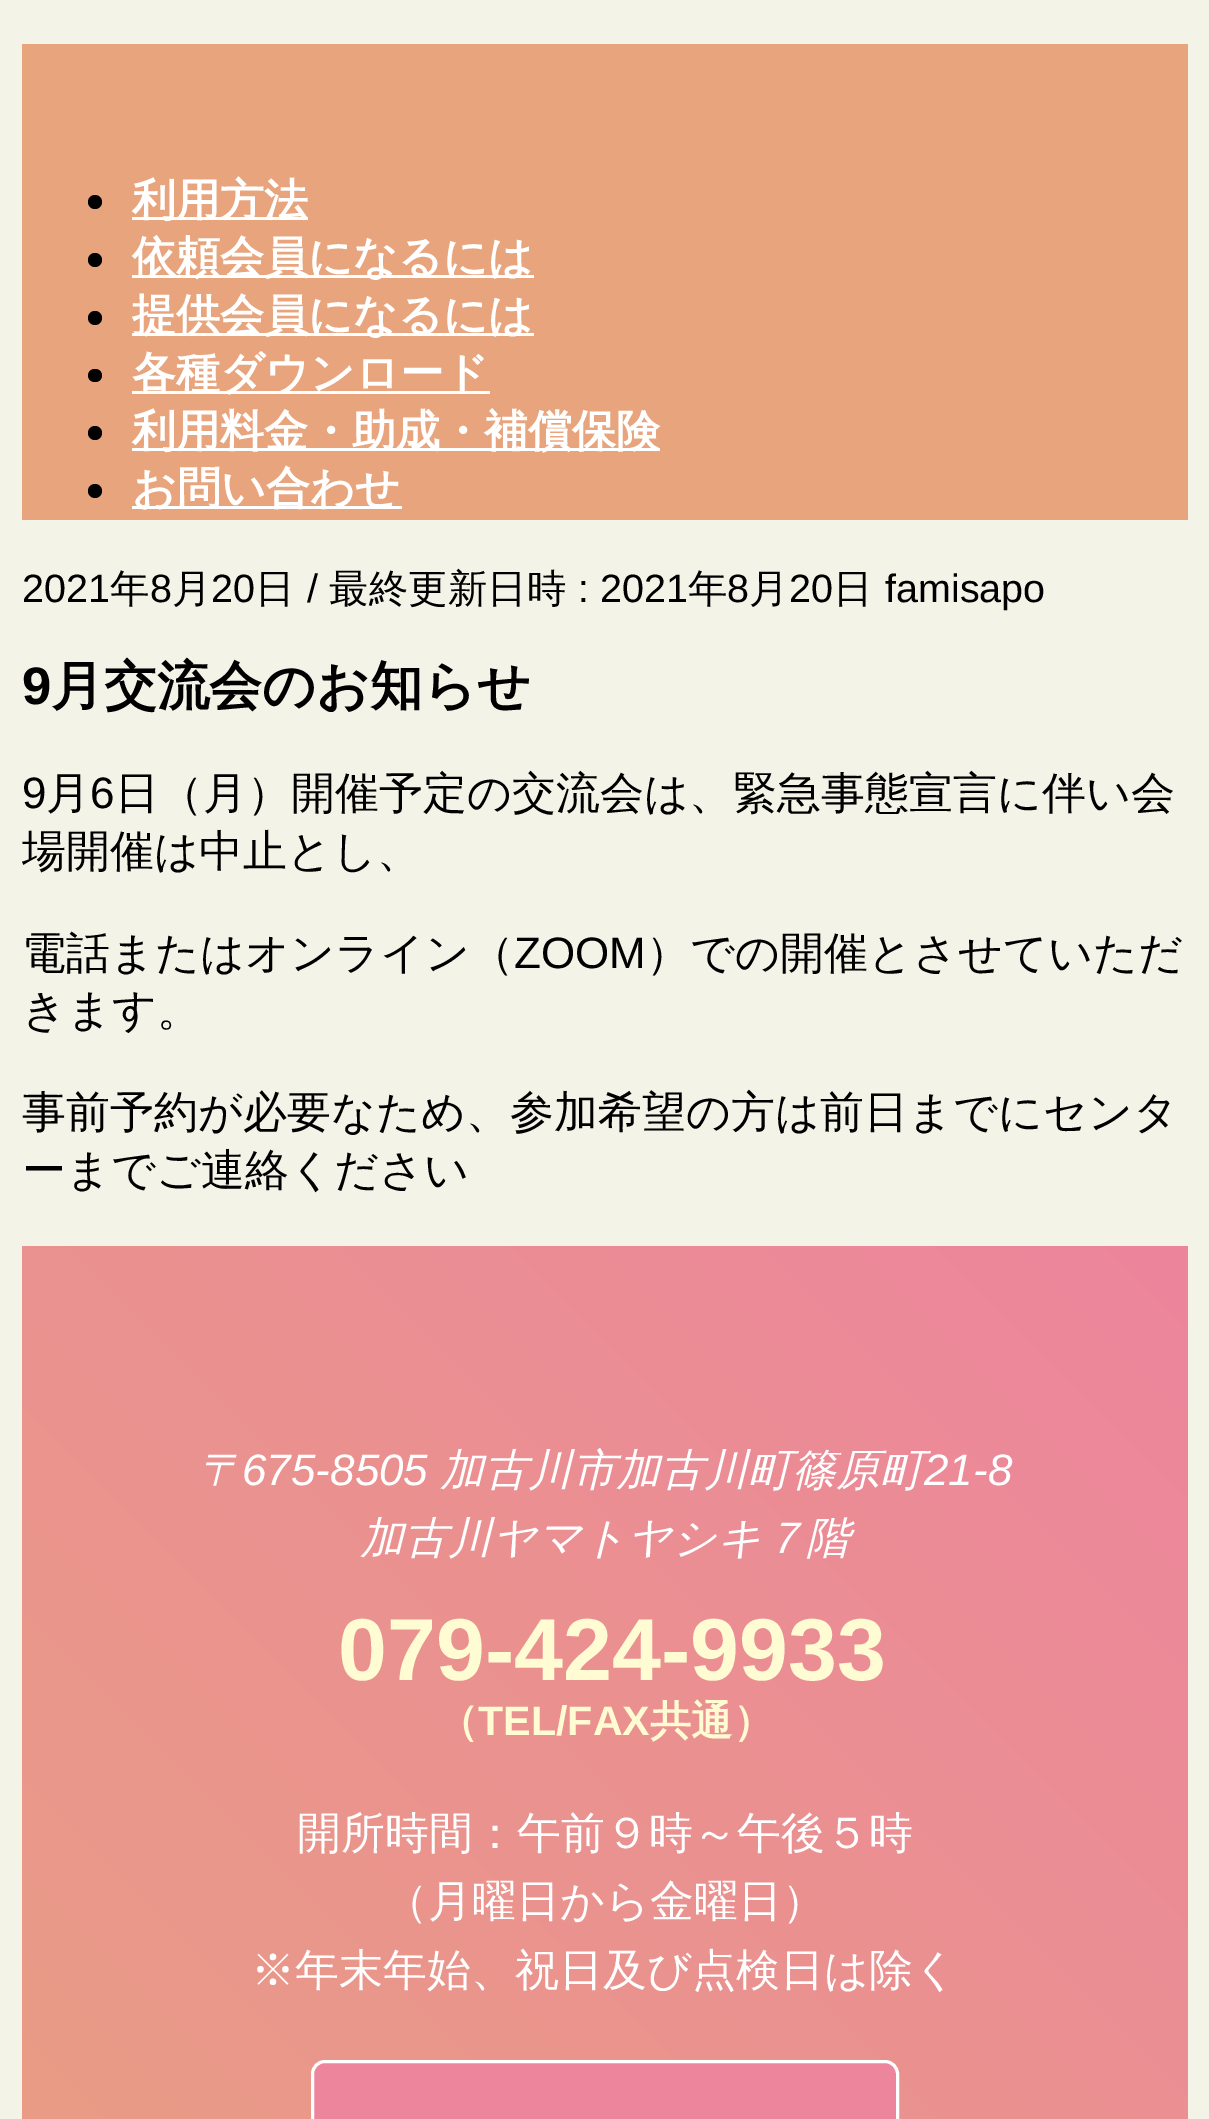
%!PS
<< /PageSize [1209 2119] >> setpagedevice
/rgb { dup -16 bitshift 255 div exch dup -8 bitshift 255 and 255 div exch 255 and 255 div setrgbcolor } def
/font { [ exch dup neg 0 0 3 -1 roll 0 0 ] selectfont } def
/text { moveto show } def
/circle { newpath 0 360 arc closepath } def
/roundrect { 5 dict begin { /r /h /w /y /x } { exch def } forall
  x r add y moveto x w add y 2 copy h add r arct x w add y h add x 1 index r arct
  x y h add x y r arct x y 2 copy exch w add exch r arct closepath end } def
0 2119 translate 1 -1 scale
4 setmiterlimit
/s1 { /WenQuanYiZenHei-Bold 44 font 16#FFFFFF rgb } def
/s2 { /LiberationSans-Regular 39.5 font 16#000000 rgb } def
/s3 { /WenQuanYiZenHei-Medium 39.5 font 16#000000 rgb } def
/s4 { /LiberationSans-Bold 52.75 font 16#000000 rgb } def
/s5 { /WenQuanYiZenHei-Bold 52.75 font 16#000000 rgb } def
/s6 { /LiberationSans-Regular 44 font 16#000000 rgb } def
/s7 { /WenQuanYiZenHei-Medium 44 font 16#000000 rgb } def
/s8 { /WenQuanYiZenHei-MediumItalic 44 font 16#FFFFFF rgb } def
/s9 { /LiberationSans-Italic 44 font 16#FFFFFF rgb } def
/s10 { /LiberationSans-Bold 88 font 16#FFFBD3 rgb } def
/s11 { /WenQuanYiZenHei-Bold 41.25 font 16#FFFBD3 rgb } def
/s12 { /LiberationSans-Bold 41.25 font 16#FFFBD3 rgb } def
/s13 { /WenQuanYiZenHei-Medium 44 font 16#FFFFFF rgb } def
16#F4F3E8 rgb
0 0 1209 2119 rectfill
16#E8A57D rgb
22 44 1166 476 rectfill
16#000000 rgb
95 202 7 circle fill
16#FFFFFF rgb
132 217 176 3 rectfill
s1
(利用方法) 132 215 text
16#000000 rgb
95 260 7 circle fill
16#FFFFFF rgb
132 275 402 3 rectfill
(依頼会員になるには) 132 272 text
16#000000 rgb
95 318 7 circle fill
16#FFFFFF rgb
132 333 402 3 rectfill
(提供会員になるには) 132 330 text
16#000000 rgb
88 369 14 13 6.5 roundrect fill
16#FFFFFF rgb
132 391 358 3 rectfill
(各種ダウンロード) 132 388 text
16#000000 rgb
95 433 7 circle fill
16#FFFFFF rgb
132 448 528 3 rectfill
(利用料金・助成・補償保険) 132 446 text
16#000000 rgb
95 491 7 circle fill
16#FFFFFF rgb
132 506 270 3 rectfill
(お問い合わせ) 132 503 text
s2
(2021) 22 602 text
s3
(年) 110 602 text
s2
(8) 150 602 text
s3
(月) 172 602 text
s2
(20) 211 602 text
s3
(日) 255 602 text
s2
(/) 307 602 text
s3
(最終更新日時) 329 602 text
s2
(: 2021) 578 602 text
s3
(年) 688 602 text
s2
(8) 727 602 text
s3
(月) 749 602 text
s2
(20) 789 602 text
s3
(日) 833 602 text
s2
(famisapo) 885 602 text
s4
(9) 22 704 text
s5
(月交流会のお知らせ) 51 704 text
s6
(9) 22 808 text
s7
(月) 46 808 text
s6
(6) 90 808 text
s7
(日（月）開催予定の交流会は、緊急事態宣言に伴い会) 115 808 text
(場開催は中止とし、) 22 866 text
(電話またはオンライン（) 22 968 text
s6
(ZOOM) 514 968 text
s7
(）での開催とさせていただ) 646 968 text
(きます。) 22 1025 text
(事前予約が必要なため、参加希望の方は前日までにセンタ) 22 1127 text
(ーまでご連絡ください) 22 1185 text
gsave 22 1246 moveto 1188 1246 lineto 1188 2119 lineto 22 2119 lineto closepath clip newpath
<< /ShadingType 2 /ColorSpace /DeviceRGB /Coords [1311 1369 -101 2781] /Extend [true true] /Function << /FunctionType 2 /Domain [0 1] /C0 [0.929 0.522 0.616] /C1 [0.91 0.647 0.49] /N 1 >> >> shfill grestore
s8
(〒) 198 1485 text
s9
(675-8505) 242 1485 text
s8
(加古川市加古川町篠原町) 440 1485 text
s9
(21-8) 924 1485 text
s8
(加古川ヤマトヤシキ７階) 360 1553 text
s10
(079-424-9933) 338 1680 text
s11
(（) 437 1735 text
s12
(TEL/FAX) 478 1735 text
s11
(共通）) 650 1735 text
s13
(開所時間：午前９時～午後５時) 297 1848 text
(（月曜日から金曜日）) 384 1916 text
(※年末年始、祝日及び点検日は除く) 251 1985 text
16#ED859D rgb
312.5 2061.5 585 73 12.5 roundrect gsave fill grestore
16#FFFFFF rgb
3 setlinewidth
stroke
showpage
